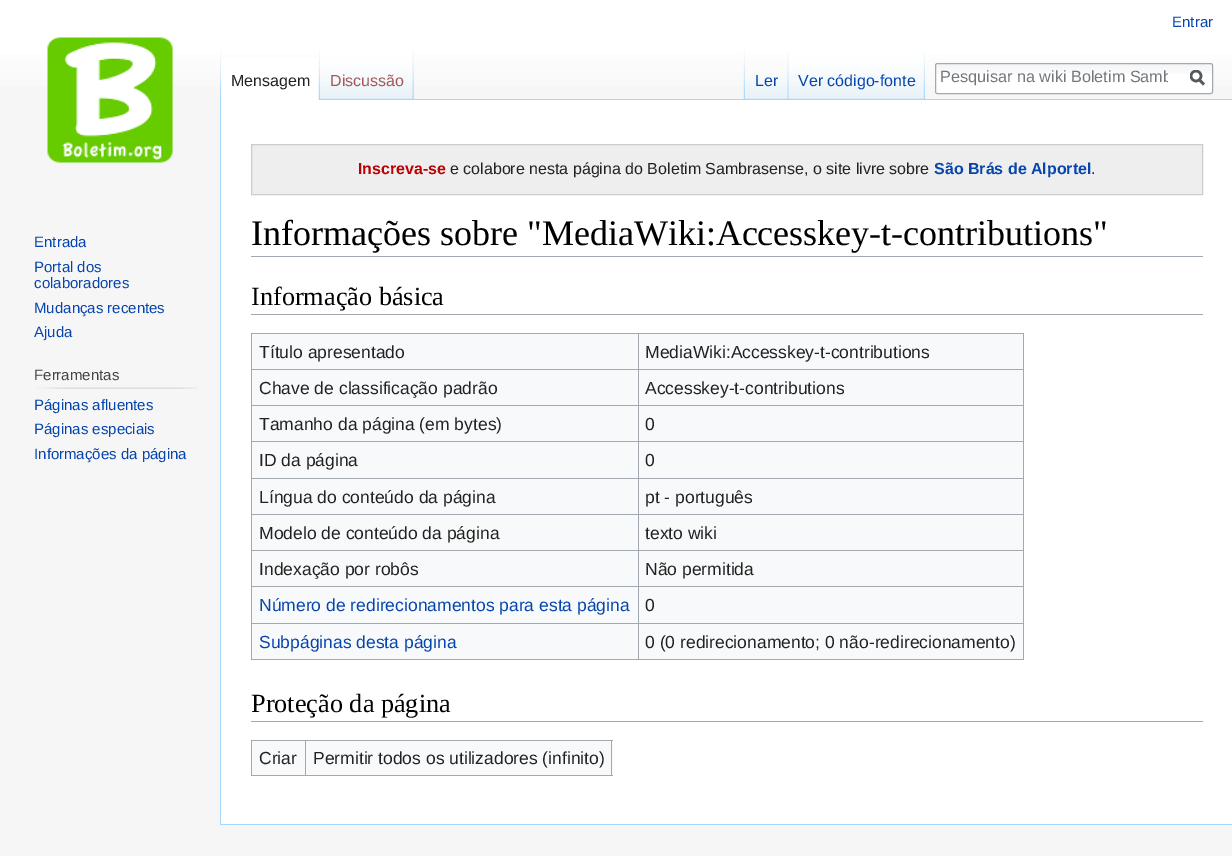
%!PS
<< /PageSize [1232 856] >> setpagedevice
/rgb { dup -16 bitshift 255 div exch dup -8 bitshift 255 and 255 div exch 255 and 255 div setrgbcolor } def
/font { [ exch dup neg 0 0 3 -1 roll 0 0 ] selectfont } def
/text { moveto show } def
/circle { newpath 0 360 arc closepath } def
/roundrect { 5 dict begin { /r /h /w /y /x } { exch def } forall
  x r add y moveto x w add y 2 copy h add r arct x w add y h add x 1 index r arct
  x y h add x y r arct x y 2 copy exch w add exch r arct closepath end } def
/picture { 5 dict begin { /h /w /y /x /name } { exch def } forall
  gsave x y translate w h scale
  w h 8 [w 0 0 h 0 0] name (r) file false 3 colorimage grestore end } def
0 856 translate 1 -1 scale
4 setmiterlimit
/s1 { /LiberationSans-Regular 15 font 16#0645AD rgb } def
/s2 { /LiberationSans-Regular 16 font 16#222222 rgb } def
/s3 { /LiberationSans-Regular 16 font 16#A55858 rgb } def
/s4 { /LiberationSans-Regular 16 font 16#0645AD rgb } def
/s5 { /LiberationSans-Regular 16.25 font 16#72777D rgb } def
/s6 { /LiberationSans-Regular 15 font 16#444444 rgb } def
/s7 { /LiberationSans-Bold 16 font 16#BA0000 rgb } def
/s8 { /LiberationSans-Bold 16 font 16#0645AD rgb } def
/s9 { /LiberationSerif-Regular 36 font 16#000000 rgb } def
/s10 { /LiberationSerif-Regular 26.25 font 16#000000 rgb } def
/s11 { /LiberationSans-Regular 17.5 font 16#222222 rgb } def
/s12 { /LiberationSans-Regular 17.5 font 16#0645AD rgb } def
16#F6F6F6 rgb
0 0 1232 856 rectfill
gsave 0 0 moveto 1232 0 lineto 1232 86 lineto 0 86 lineto closepath clip newpath
<< /ShadingType 2 /ColorSpace /DeviceRGB /Coords [616 0 616 100] /Extend [true true] /Function << /FunctionType 3 /Domain [0 1] /Functions [<< /FunctionType 2 /Domain [0 1] /C0 [1 1 1] /C1 [1 1 1] /N 1 >> << /FunctionType 2 /Domain [0 1] /C0 [1 1 1] /C1 [0.965 0.965 0.965] /N 1 >>] /Bounds [0.5] /Encode [0 1 0 1] >> >> shfill grestore
s1
(Entrar) 1172 27 text
(pic1.raw) 220 50 2 49 picture
(pic2.raw) 413 52 1 47 picture
16#FFFFFF rgb
221 58 98 42 rectfill
(pic3.raw) 318 50 2 50 picture
s2
(Mensagem) 231 86 text
(pic4.raw) 320 52 94 47 picture
(pic5.raw) 412 52 2 47 picture
s3
(Discussão) 330 86 text
(pic6.raw) 743 50 2 49 picture
(pic7.raw) 745 77 44 22 picture
(pic8.raw) 787 52 2 47 picture
s4
(Ler) 755 86 text
(pic9.raw) 788 50 136 49 picture
(pic10.raw) 923 50 2 49 picture
(Ver código-fonte) 798 86 text
16#FFFFFF rgb
935 63 278 31 2.5 roundrect fill
(pic11.raw) 935 64 277 10 picture
16#A2A9B1 rgb
935.5 63.5 277 30 2 roundrect stroke
gsave
940 68 228 18 rectclip
s5
(Pesquisar na wiki Boletim Samb) 940 82 text
grestore
16#54595D rgb
2.5 setlinewidth
1204 84.5 moveto 1199 79.5 lineto stroke
gsave
1190 70 15 16 rectclip
1196 76 5 circle stroke
grestore
(pic12.raw) 47 37 126 126 picture
s1
(Entrada) 34 247 text
(Portal dos) 34 272 text
(colaboradores) 34 288 text
(Mudanças recentes) 34 313 text
(Ajuda) 34 337 text
s6
(Ferramentas) 34 380 text
(pic13.raw) 37 387 161 2 picture
s1
(Páginas afluentes) 34 410 text
(Páginas especiais) 34 434 text
(Informações da página) 34 459 text
16#FFFFFF rgb
221 100 1011 724 rectfill
16#A7D7F9 rgb
320 99 912 1 rectfill
220 824 1012 1 rectfill
220 99 1 726 rectfill
16#EEEEEE rgb
251.5 144.5 moveto 1202.5 144.5 lineto 1202.5 194.5 lineto 251.5 194.5 lineto closepath gsave fill grestore
16#CCCCCC rgb
1 setlinewidth
stroke
s7
(Inscreva-se) 358 174 text
s2
(e colabore nesta página do Boletim Sambrasense, o site livre sobre) 450 174 text
s8
(São Brás de Alportel) 934 174 text
s2
(.) 1091 174 text
16#A2A9B1 rgb
251 256 952 1 rectfill
s9
(Informações sobre "MediaWiki:Accesskey-t-contributions") 251 245 text
16#A2A9B1 rgb
251 314 952 1 rectfill
s10
(Informação básica) 251 305 text
16#F8F9FA rgb
252 334 771 325 rectfill
16#A2A9B1 rgb
251 333 773 1 rectfill
1023 333 1 327 rectfill
251 659 773 1 rectfill
251 333 1 327 rectfill
s11
(Título apresentado) 259 358 text
16#A2A9B1 rgb
638 369 386 1 rectfill
638 405 386 1 rectfill
638 441 386 1 rectfill
638 478 386 1 rectfill
638 514 386 1 rectfill
638 550 386 1 rectfill
638 586 386 1 rectfill
638 623 386 1 rectfill
638 623 1 37 rectfill
251 623 388 1 rectfill
638 586 1 38 rectfill
251 586 388 1 rectfill
638 550 1 38 rectfill
251 550 388 1 rectfill
638 514 1 37 rectfill
251 514 388 1 rectfill
638 478 1 37 rectfill
251 478 388 1 rectfill
638 441 1 38 rectfill
251 441 388 1 rectfill
638 405 1 38 rectfill
251 405 388 1 rectfill
638 369 1 37 rectfill
251 369 388 1 rectfill
638 333 1 37 rectfill
s11
(MediaWiki:Accesskey-t-contributions) 645 358 text
(Chave de classificação padrão) 259 394 text
(Accesskey-t-contributions) 645 394 text
(Tamanho da página \(em bytes\)) 259 430 text
(0) 645 430 text
(ID da página) 259 466 text
(0) 645 466 text
(Língua do conteúdo da página) 259 503 text
(pt - português) 645 503 text
(Modelo de conteúdo da página) 259 539 text
(texto wiki) 645 539 text
(Indexação por robôs) 259 575 text
(Não permitida) 645 575 text
s12
(Número de redirecionamentos para esta página) 259 611 text
s11
(0) 645 611 text
s12
(Subpáginas desta página) 259 648 text
s11
(0 \(0 redirecionamento; 0 não-redirecionamento\)) 645 648 text
16#A2A9B1 rgb
251 721 952 1 rectfill
s10
(Proteção da página) 251 712 text
16#F8F9FA rgb
252 741 361 34 rectfill
16#A2A9B1 rgb
251 740 362 1 rectfill
611 740 1 36 rectfill
251 775 362 1 rectfill
251 740 1 36 rectfill
s11
(Criar) 259 764 text
16#A2A9B1 rgb
305 740 1 36 rectfill
s11
(Permitir todos os utilizadores \(infinito\)) 313 764 text
showpage
